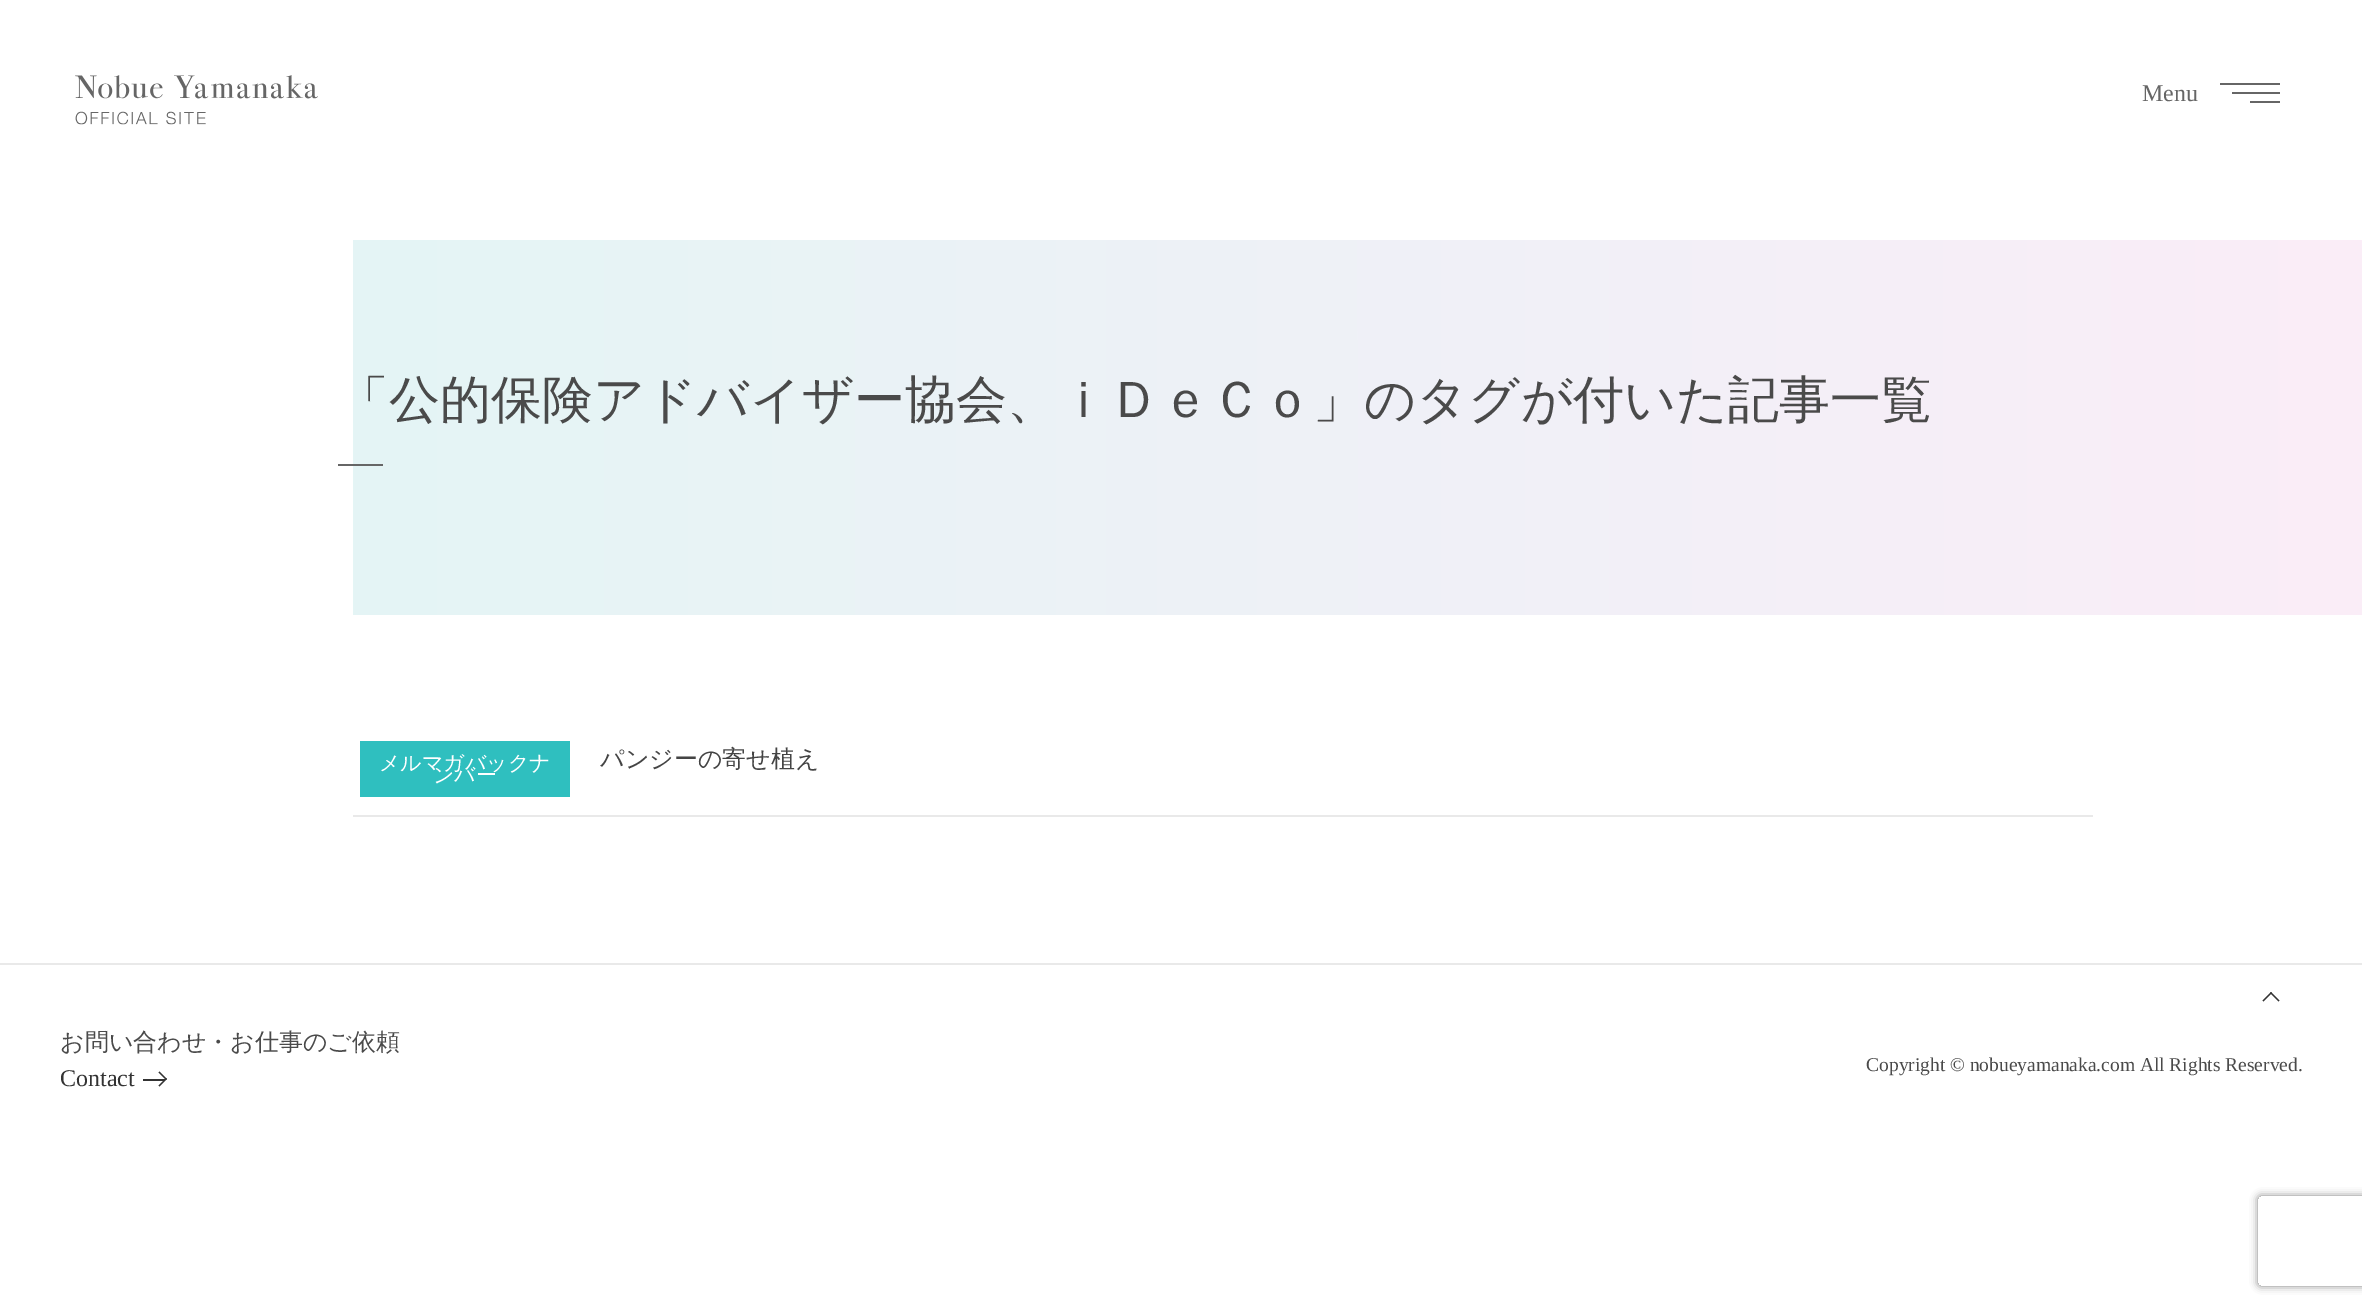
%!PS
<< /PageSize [2362 1306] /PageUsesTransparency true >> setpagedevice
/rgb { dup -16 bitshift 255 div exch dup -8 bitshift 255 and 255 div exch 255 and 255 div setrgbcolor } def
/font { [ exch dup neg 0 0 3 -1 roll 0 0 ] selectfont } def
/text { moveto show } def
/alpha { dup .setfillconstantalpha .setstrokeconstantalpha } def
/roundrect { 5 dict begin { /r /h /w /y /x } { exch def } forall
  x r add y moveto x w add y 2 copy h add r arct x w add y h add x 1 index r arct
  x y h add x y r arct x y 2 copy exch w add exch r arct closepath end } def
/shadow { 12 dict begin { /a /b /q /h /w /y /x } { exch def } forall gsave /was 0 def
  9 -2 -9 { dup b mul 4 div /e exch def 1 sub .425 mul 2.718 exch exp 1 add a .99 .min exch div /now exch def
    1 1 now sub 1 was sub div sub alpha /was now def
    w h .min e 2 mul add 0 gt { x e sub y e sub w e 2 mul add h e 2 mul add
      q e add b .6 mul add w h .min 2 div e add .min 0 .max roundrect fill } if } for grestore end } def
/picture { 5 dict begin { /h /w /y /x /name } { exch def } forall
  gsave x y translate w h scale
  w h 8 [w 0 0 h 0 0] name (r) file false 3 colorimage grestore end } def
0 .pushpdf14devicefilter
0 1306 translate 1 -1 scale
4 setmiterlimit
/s1 { /LiberationSerif-Regular 24 font 16#666666 rgb } def
/s2 { /WenQuanYiZenHei-Medium 51 font 16#4A4A4A rgb } def
/s3 { /WenQuanYiZenHei-Medium 21 font 16#FFFFFF rgb } def
/s4 { /WenQuanYiZenHei-Medium 24 font 16#444444 rgb } def
/s5 { /WenQuanYiZenHei-Medium 24 font 16#4A4A4A rgb } def
/s6 { /LiberationSerif-Regular 24 font 16#333333 rgb } def
/s7 { /LiberationSerif-Regular 19.5 font 16#4A4A4A rgb } def
16#FFFFFF rgb
0 0 2362 1306 rectfill
(pic1.raw) 75 75 243 50 picture
s1
(Menu) 2142 101 text
2220 83 60 2 rectfill
2232 92 48 2 rectfill
2250 101 30 2 rectfill
gsave 353 240 moveto 2362 240 lineto 2362 615 lineto 353 615 lineto closepath clip newpath
<< /ShadingType 2 /ColorSpace /DeviceRGB /Coords [353 428 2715 427] /Extend [true true] /Function << /FunctionType 2 /Domain [0 1] /C0 [0.894 0.961 0.961] /C1 [1 0.925 0.976] /N 1 >> >> shfill grestore
s2
(「公的保険アドバイザー協会、ｉＤｅＣｏ」のタグが付いた記事一覧) 338 417 text
16#666666 rgb
338 464 45 2 rectfill
16#E9E9E9 rgb
353 815 1740 2 rectfill
16#2FBFBF rgb
360 741 210 56 rectfill
s3
(メルマガバックナ) 379 770 text
(ンバー) 433 782 text
s4
(パンジーの寄せ植え) 600 767 text
16#E9E9E9 rgb
0 963 2362 2 rectfill
16#333333 rgb
2262.5 1000.5 moveto 2271 992 lineto 2272 993 lineto 2263.5 1001.5 lineto closepath fill
2270 993 moveto 2271 992 lineto 2279.5 1000.5 lineto 2278.5 1001.5 lineto closepath fill
s5
(お問い合わせ・お仕事のご依頼) 60 1050 text
s6
(Contact) 60 1086 text
143 1079 22 2 rectfill
159.5 1071.5 moveto 167 1079 lineto 166 1080 lineto 158.5 1072.5 lineto closepath fill
166 1078 moveto 167 1079 lineto 159.5 1086.5 lineto 158.5 1085.5 lineto closepath fill
s7
(Copyright © nobueyamanaka.com All Rights Reserved.) 1866 1071 text
gsave
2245 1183 moveto 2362 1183 lineto 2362 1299 lineto 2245 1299 lineto closepath 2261 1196 moveto 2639 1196 lineto 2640.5 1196 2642 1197.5 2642 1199 curveto 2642 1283 lineto 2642 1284.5 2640.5 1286 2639 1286 curveto 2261 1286 lineto 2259.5 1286 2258 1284.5 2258 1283 curveto 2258 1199 lineto 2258 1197.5 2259.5 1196 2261 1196 curveto closepath eoclip newpath
16#808080 rgb
2258 1196 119 90 3 4 1 shadow
grestore
.poppdf14devicefilter showpage
